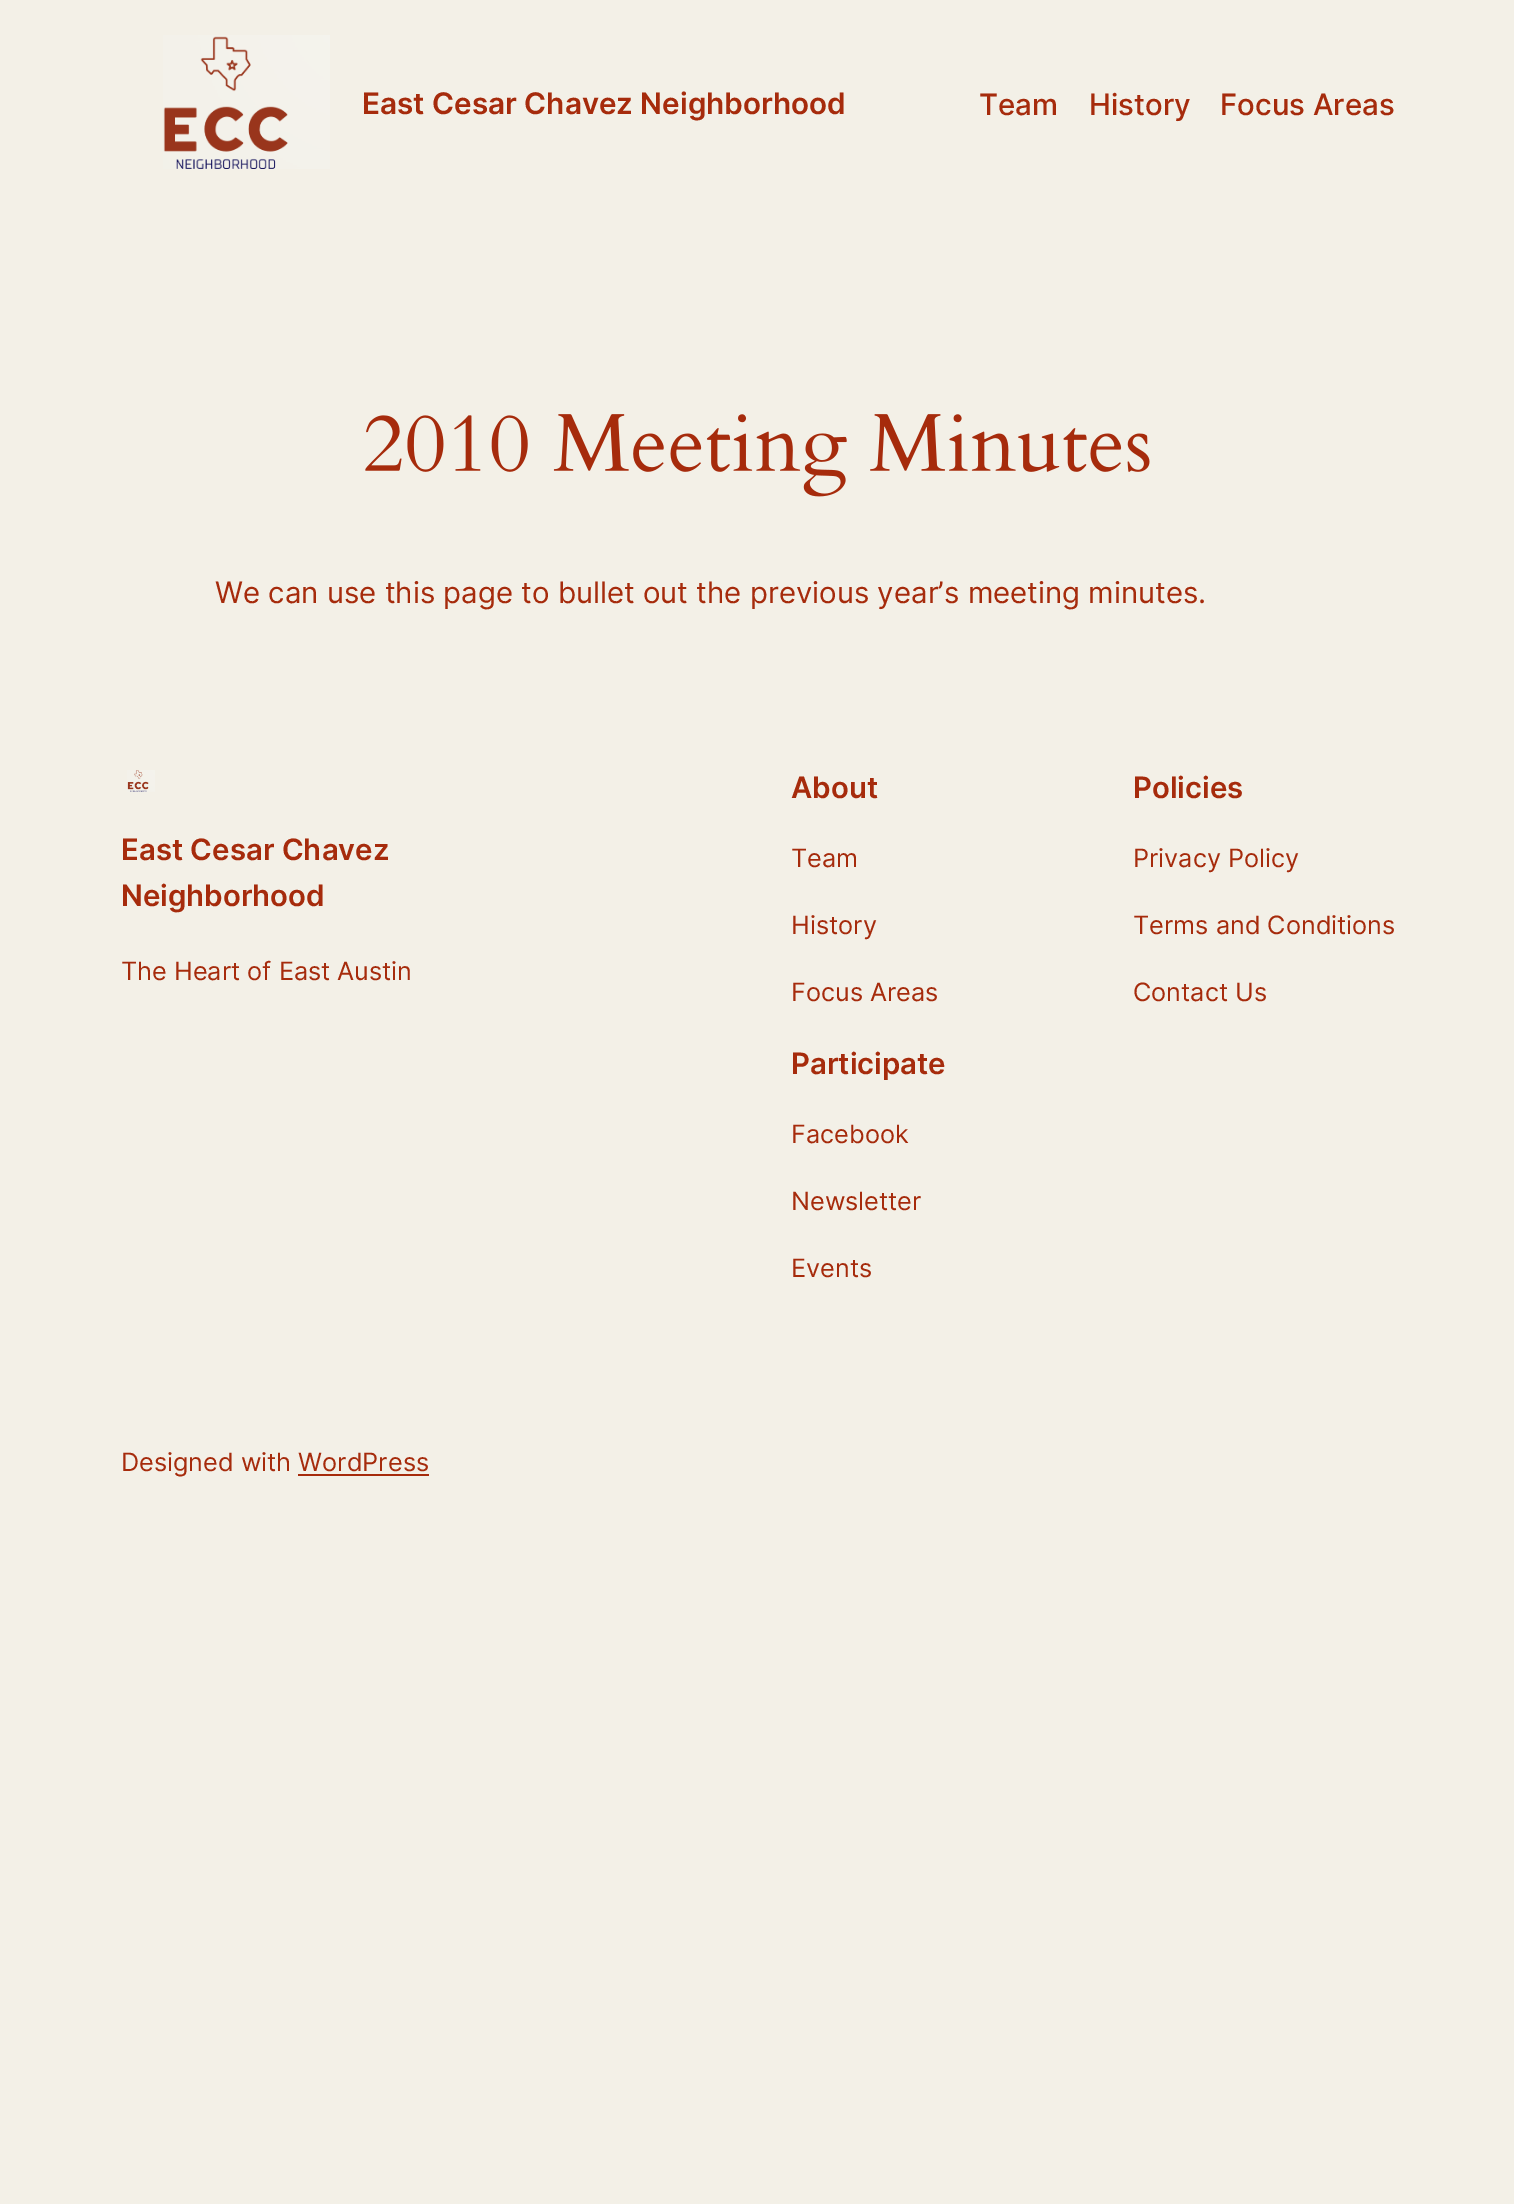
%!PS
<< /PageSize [1514 2204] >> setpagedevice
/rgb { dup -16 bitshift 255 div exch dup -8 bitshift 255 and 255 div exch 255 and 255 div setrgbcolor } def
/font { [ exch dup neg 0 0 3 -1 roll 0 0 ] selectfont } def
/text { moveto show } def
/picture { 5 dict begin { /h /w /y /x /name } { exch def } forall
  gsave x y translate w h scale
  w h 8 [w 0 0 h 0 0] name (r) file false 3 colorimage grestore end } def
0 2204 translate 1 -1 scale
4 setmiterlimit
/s1 { /Inter-SemiBold 29.7 font 16#A62B0C rgb } def
/s2 { /Inter-Medium 29.4 font 16#A62B0C rgb } def
/s3 { /Inter-Regular 29.4 font 16#A62B0C rgb } def
/s4 { /Inter-SemiBold 29.4 font 16#A62B0C rgb } def
/s5 { /Inter-Regular 25.25 font 16#A62B0C rgb } def
16#F3F0E7 rgb
0 0 1514 2204 rectfill
(pic1.raw) 163 35 167 134 picture
s1
(East Cesar Chavez Neighborhood) 362 114 text
s2
(Team) 979 115 text
(History) 1089 115 text
(Focus Areas) 1220 115 text
(pic2.raw) 365 414 785 83 picture
s3
(We can use this page to bullet out the previous year’s meeting minutes.) 215 603 text
(pic3.raw) 127 770 28 22 picture
s4
(East Cesar Chavez) 121 860 text
(Neighborhood) 121 906 text
s5
(The Heart of East Austin) 121 980 text
s4
(About) 791 798 text
s5
(Team) 791 867 text
(History) 791 934 text
(Focus Areas) 791 1001 text
s4
(Policies) 1133 798 text
s5
(Privacy Policy) 1133 867 text
(Terms and Conditions) 1133 934 text
(Contact Us) 1133 1001 text
s4
(Participate) 791 1074 text
s5
(Facebook) 791 1143 text
(Newsletter) 791 1210 text
(Events) 791 1277 text
(Designed with WordPress) 121 1471 text
298 1474 131 2 rectfill
showpage
